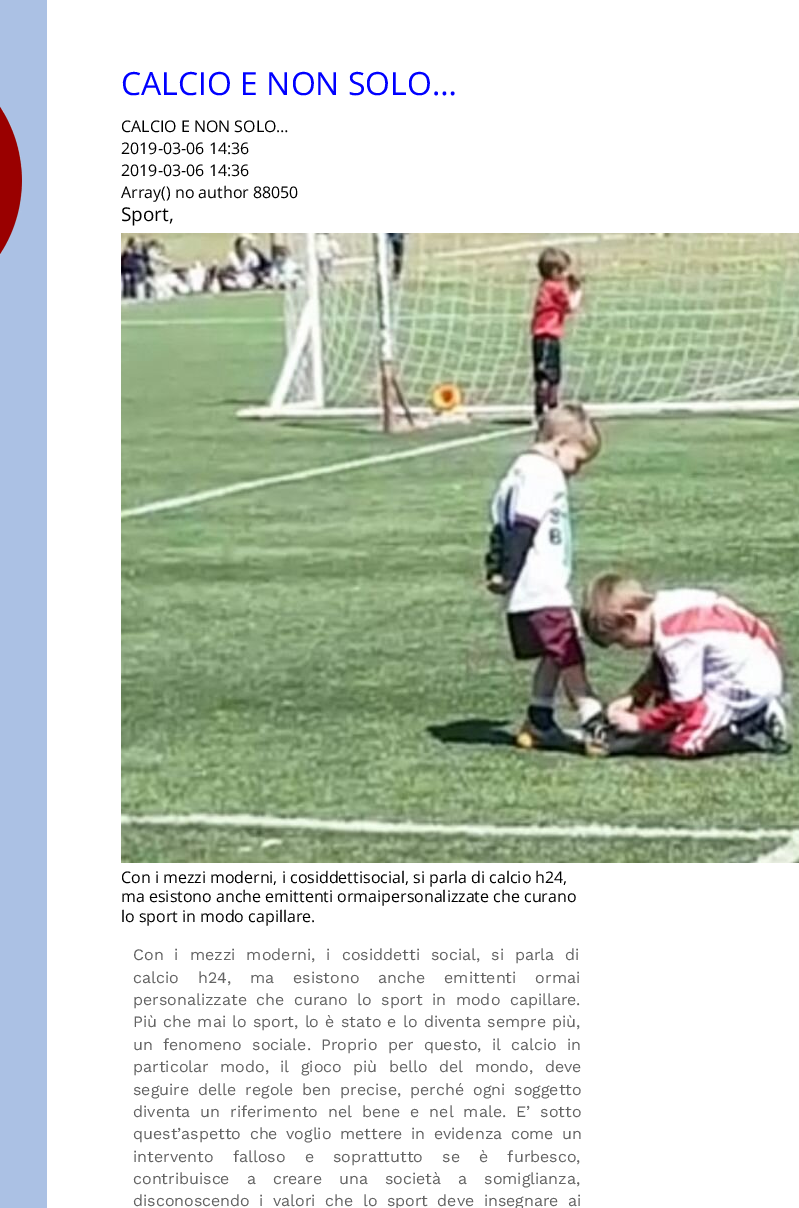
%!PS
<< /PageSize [799 1208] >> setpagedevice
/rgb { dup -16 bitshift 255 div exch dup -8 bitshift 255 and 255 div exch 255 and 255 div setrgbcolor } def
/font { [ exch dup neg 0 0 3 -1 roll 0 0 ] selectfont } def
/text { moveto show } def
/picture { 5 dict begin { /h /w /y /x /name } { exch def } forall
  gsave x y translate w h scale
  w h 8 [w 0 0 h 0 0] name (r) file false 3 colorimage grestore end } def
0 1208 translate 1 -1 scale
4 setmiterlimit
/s1 { /OpenSans-Regular 32 font 16#0000FF rgb } def
/s2 { /OpenSans-Regular 16 font 16#000000 rgb } def
/s3 { /OpenSans-Regular 19 font 16#000000 rgb } def
16#FFFFFF rgb
0 0 799 1208 rectfill
16#ABC1E4 rgb
0 0 47 1208 rectfill
s1
(CALCIO E NON SOLO…) 121 95 text
s2
(CALCIO E NON SOLO…) 121 132 text
(2019-03-06 14:36) 121 154 text
(2019-03-06 14:36) 121 176 text
(Array\(\) no author 88050) 121 198 text
s3
(Sport,) 121 221 text
(pic1.raw) 121 233 678 630 picture
s2
(Con i mezzi moderni, i cosiddettisocial, si parla di calcio h24,) 121 883 text
(ma esistono anche emittenti ormaipersonalizzate che curano) 121 902 text
(lo sport in modo capillare.) 121 922 text
/WorkSans-Regular 16 font
16#636363 rgb
133 960 moveto 5.5 0 32 (Con i mezzi moderni, i cosiddetti social, si parla di) widthshow
133 983 moveto 13.5 0 32 (calcio h24, ma esistono anche emittenti ormai) widthshow
133 1005 moveto 4 0 32 (personalizzate che curano lo sport in modo capillare.) widthshow
133 1027 moveto 0.75 0 32 (Più che mai lo sport, lo è stato e lo diventa sempre più,) widthshow
133 1050 moveto 4.75 0 32 (un fenomeno sociale. Proprio per questo, il calcio in) widthshow
133 1072 moveto 6 0 32 (particolar modo, il gioco più bello del mondo, deve) widthshow
133 1095 moveto 3.5 0 32 (seguire delle regole ben precise, perché ogni soggetto) widthshow
133 1117 moveto 4.5 0 32 (diventa un riferimento nel bene e nel male. E’ sotto) widthshow
133 1139 moveto 3 0 32 (quest’aspetto che voglio mettere in evidenza come un) widthshow
133 1162 moveto 13.75 0 32 (intervento falloso e soprattutto se è furbesco,) widthshow
133 1184 moveto 11.5 0 32 (contribuisce a creare una società a somiglianza,) widthshow
133 1206 moveto 4 0 32 (disconoscendo i valori che lo sport deve insegnare ai) widthshow
(pic2.raw) 0 106 22 149 picture
showpage
